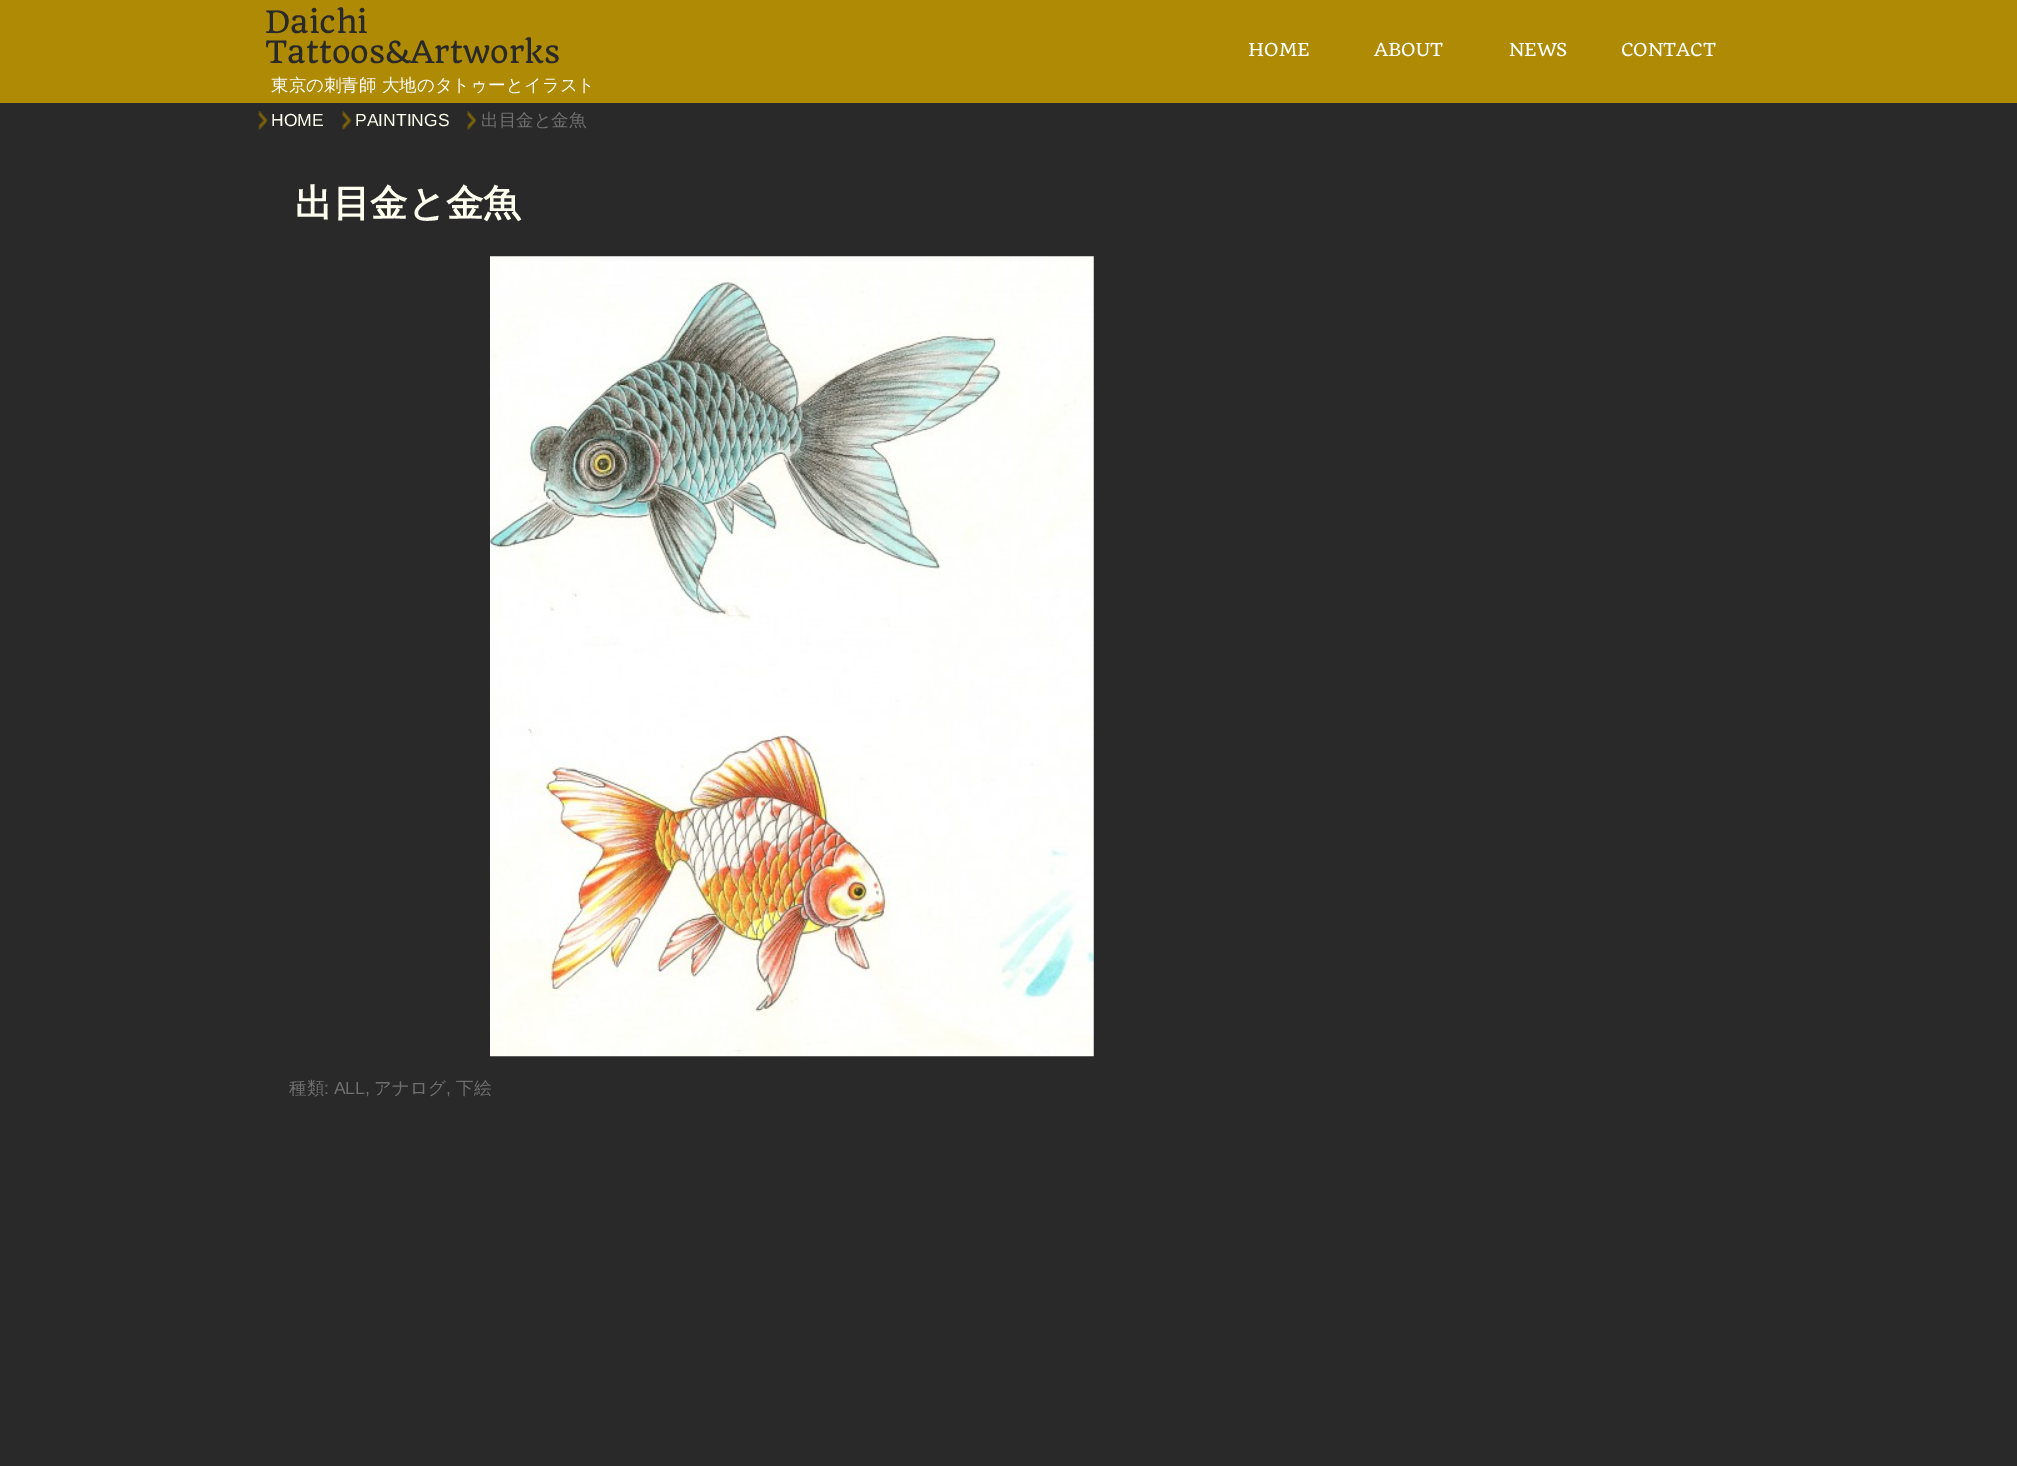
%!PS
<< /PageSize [2017 1466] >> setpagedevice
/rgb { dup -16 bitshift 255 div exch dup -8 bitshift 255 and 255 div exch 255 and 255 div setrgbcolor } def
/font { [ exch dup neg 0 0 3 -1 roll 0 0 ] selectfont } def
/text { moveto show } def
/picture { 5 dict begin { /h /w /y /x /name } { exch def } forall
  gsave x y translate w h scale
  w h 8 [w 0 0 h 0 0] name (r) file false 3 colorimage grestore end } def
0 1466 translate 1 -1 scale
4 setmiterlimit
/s1 { /Quando-Regular 30 font 16#292929 rgb } def
/s2 { /WenQuanYiZenHei-Medium 17.5 font 16#FFFFFF rgb } def
/s3 { /Quando-Regular 17.5 font 16#FFFFFF rgb } def
/s4 { /LiberationSans-Regular 17.5 font 16#FFFFF0 rgb } def
/s5 { /WenQuanYiZenHei-Medium 17.5 font 16#707070 rgb } def
/s6 { /WenQuanYiZenHei-Bold 37.5 font 16#FFFFF0 rgb } def
/s7 { /LiberationSans-Regular 17.5 font 16#707070 rgb } def
16#292929 rgb
0 0 2017 1466 rectfill
16#AE8A05 rgb
0 0 2017 103 rectfill
s1
(Daichi) 265 33 text
(Tattoos&Artworks) 265 63 text
s2
(東京の刺青師 大地のタトゥーとイラスト) 271 91 text
s3
(HOME) 1248 56 text
(ABOUT) 1374 56 text
(NEWS) 1509 56 text
(CONTACT) 1621 56 text
(pic1.raw) 258 111 10 19 picture
s4
(HOME) 271 126 text
(pic2.raw) 342 111 10 19 picture
(PAINTINGS) 355 126 text
(pic3.raw) 467 111 10 19 picture
s5
(出目金と金魚) 481 126 text
s6
(出目金と金魚) 295 216 text
(pic4.raw) 490 256 604 801 picture
s5
(種類) 289 1094 text
s7
(: ALL,) 324 1094 text
s5
(アナログ) 374 1094 text
s7
(,) 446 1094 text
s5
(下絵) 456 1094 text
showpage
